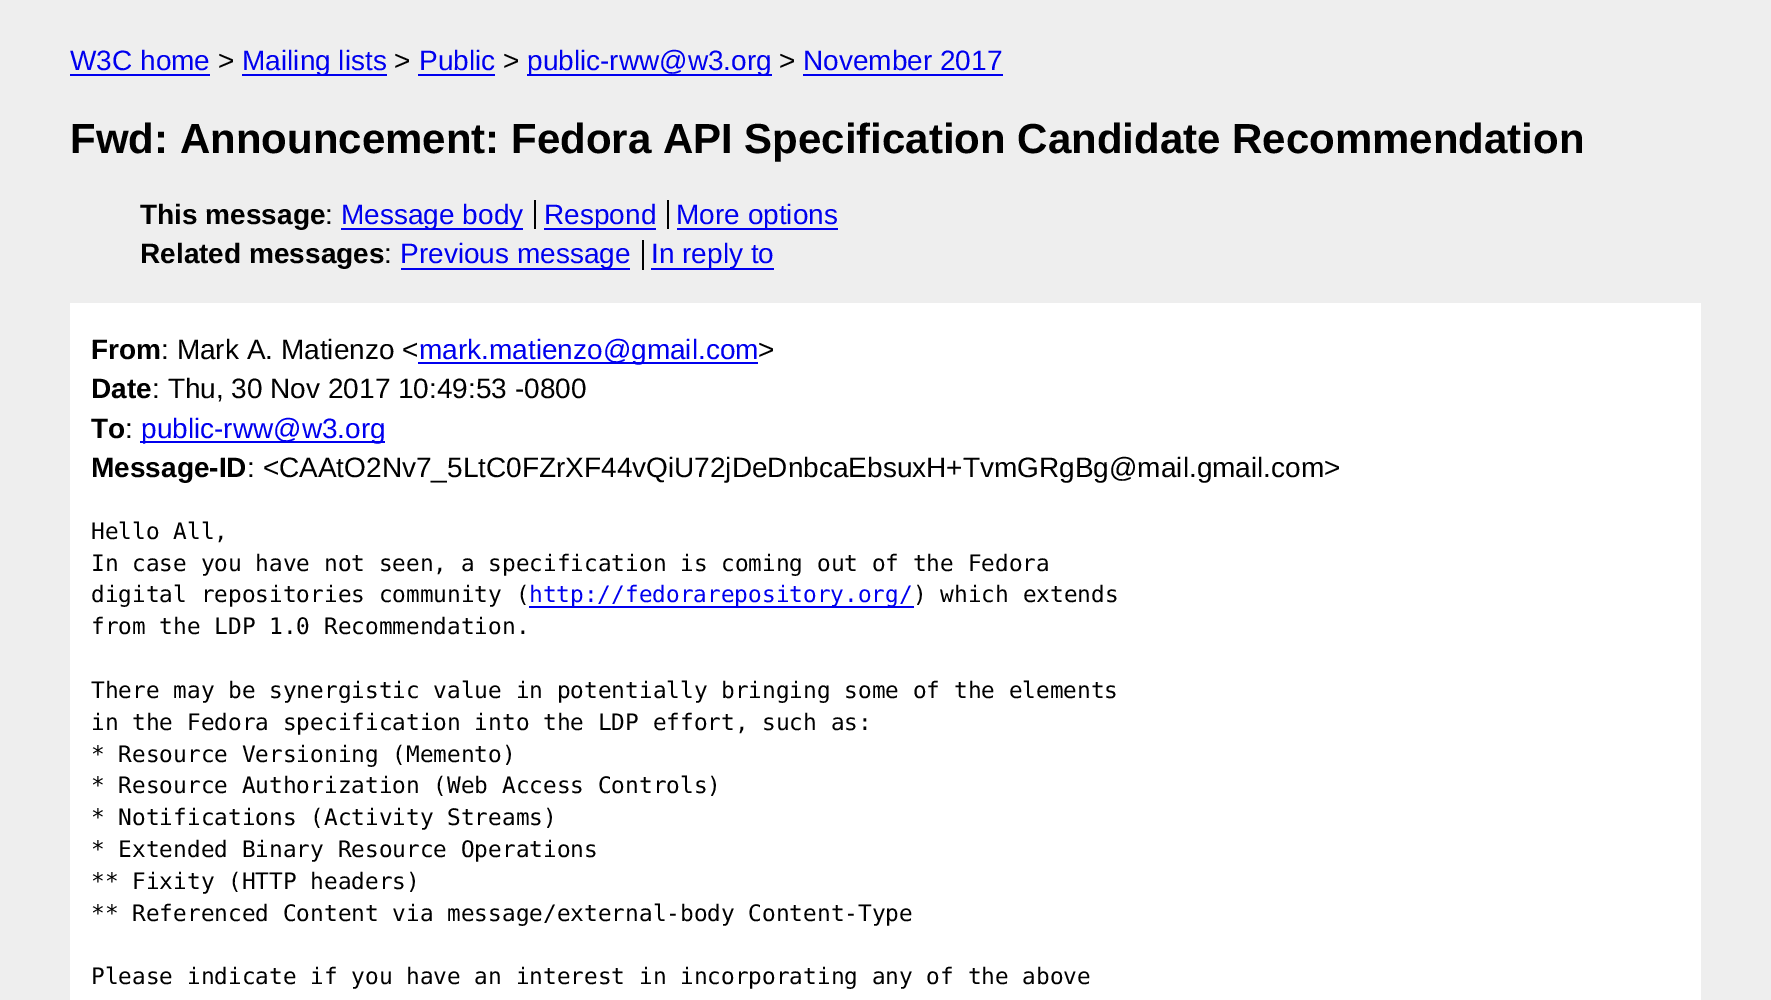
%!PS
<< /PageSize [1771 1000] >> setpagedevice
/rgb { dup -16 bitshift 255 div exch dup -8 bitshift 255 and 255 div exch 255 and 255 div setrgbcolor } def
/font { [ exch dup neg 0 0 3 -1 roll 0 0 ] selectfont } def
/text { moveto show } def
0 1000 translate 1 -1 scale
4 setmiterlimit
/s1 { /LiberationSans-Regular 28 font 16#0000EE rgb } def
/s2 { /LiberationSans-Regular 28 font 16#000000 rgb } def
/s3 { /LiberationSans-Bold 42 font 16#000000 rgb } def
/s4 { /LiberationSans-Bold 28 font 16#000000 rgb } def
/s5 { /DejaVuSansMono-Regular 22.75 font 16#000000 rgb } def
/s6 { /DejaVuSansMono-Regular 22.75 font 16#0000EE rgb } def
16#EEEEEE rgb
0 0 1771 1000 rectfill
s1
(W3C home) 70 70 text
70 74 140 2 rectfill
s2
(>) 218 70 text
16#0000EE rgb
242 74 145 2 rectfill
(Mailing lists) 242 70 text
s2
(>) 394 70 text
s1
(Public) 419 70 text
418 74 77 2 rectfill
s2
(>) 503 70 text
16#0000EE rgb
527 74 245 2 rectfill
(public-rww@w3.org) 527 70 text
s2
(>) 779 70 text
s1
(November 2017) 803 70 text
803 74 200 2 rectfill
s3
(Fwd: Announcement: Fedora API Specification Candidate Recommendation) 70 153 text
s4
(This message) 140 224 text
s2
(:) 325 224 text
16#0000EE rgb
341 228 182 2 rectfill
(Message body) 341 224 text
544 228 112 2 rectfill
(Respond) 544 224 text
16#000000 rgb
534 200 2 29 rectfill
16#0000EE rgb
677 228 161 2 rectfill
(More options) 676 224 text
16#000000 rgb
667 200 2 29 rectfill
s4
(Related messages) 140 263 text
s2
(:) 384 263 text
16#0000EE rgb
401 268 229 2 rectfill
(Previous message) 400 263 text
651 268 123 2 rectfill
(In reply to) 651 263 text
16#000000 rgb
642 240 2 30 rectfill
16#FFFFFF rgb
70 303 1631 697 rectfill
s4
(From) 91 359 text
s2
(: Mark A. Matienzo <) 161 359 text
16#0000EE rgb
418 362 340 2 rectfill
(mark.matienzo@gmail.com) 419 359 text
s2
(>) 758 359 text
s4
(Date) 91 398 text
s2
(: Thu, 30 Nov 2017 10:49:53 -0800) 152 398 text
s4
(To) 91 438 text
s2
(:) 125 438 text
16#0000EE rgb
140 441 245 2 rectfill
(public-rww@w3.org) 141 438 text
s4
(Message-ID) 91 477 text
s2
(: <CAAtO2Nv7_5LtC0FZrXF44vQiU72jDeDnbcaEbsuxH+TvmGRgBg@mail.gmail.com>) 247 477 text
s5
(Hello All,) 91 539 text
(In case you have not seen, a specification is coming out of the Fedora) 91 571 text
(digital repositories community \() 91 602 text
16#0000EE rgb
529 606 385 2 rectfill
(http://fedorarepository.org/) 529 602 text
s5
(\) which extends) 913 602 text
(from the LDP 1.0 Recommendation.) 91 634 text
(There may be synergistic value in potentially bringing some of the elements) 91 698 text
(in the Fedora specification into the LDP effort, such as:) 91 730 text
(* Resource Versioning \(Memento\)) 91 762 text
(* Resource Authorization \(Web Access Controls\)) 91 793 text
(* Notifications \(Activity Streams\)) 91 825 text
(* Extended Binary Resource Operations) 91 857 text
(** Fixity \(HTTP headers\)) 91 889 text
(** Referenced Content via message/external-body Content-Type) 91 921 text
(Please indicate if you have an interest in incorporating any of the above) 91 984 text
showpage
